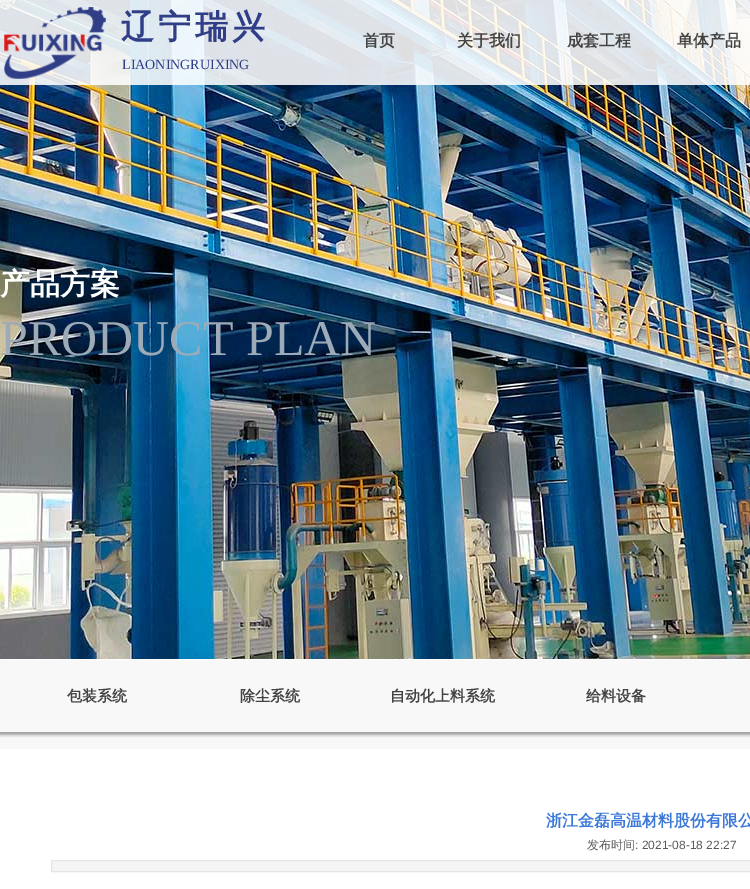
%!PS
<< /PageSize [750 889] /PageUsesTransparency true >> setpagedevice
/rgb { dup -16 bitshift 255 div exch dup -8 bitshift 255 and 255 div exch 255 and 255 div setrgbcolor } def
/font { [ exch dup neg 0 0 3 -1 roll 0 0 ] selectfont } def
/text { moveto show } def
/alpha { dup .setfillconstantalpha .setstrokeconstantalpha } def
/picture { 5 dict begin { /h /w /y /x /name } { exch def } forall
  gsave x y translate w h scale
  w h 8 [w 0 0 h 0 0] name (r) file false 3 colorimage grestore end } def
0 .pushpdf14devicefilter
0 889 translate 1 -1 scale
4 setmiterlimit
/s1 { /WenQuanYiZenHei-Bold 16 font 16#434343 rgb } def
/s2 { /LiberationSerif-Regular 14 font 16#303E87 rgb } def
/s3 { /WenQuanYiZenHei-Bold 30 font 16#FFFFFF rgb } def
/s4 { /LiberationSerif-Regular 50 font 16#9DABB9 rgb } def
/s5 { /WenQuanYiZenHei-Bold 15 font 16#434343 rgb } def
/s6 { /WenQuanYiZenHei-Bold 16 font 16#3C78D8 rgb } def
/s7 { /WenQuanYiZenHei-Medium 12 font 16#5A5A5A rgb } def
/s8 { /LiberationSans-Regular 12 font 16#5A5A5A rgb } def
16#FFFFFF rgb
0 0 750 889 rectfill
(pic2.raw) 0 0 750 659 picture
0.87 alpha
0 0 750 85 rectfill
1 alpha
(pic1.raw) 4 7 102 72 picture
/WenQuanYiZenHei-Bold 33 font
16#303E87 rgb
121 38 moveto 4 0 (辽宁瑞兴) ashow
s1
(首页) 363 46 text
(关于我们) 457 46 text
(成套工程) 567 46 text
(单体产品) 677 46 text
s2
(LIAONINGRUIXING) 122 69 text
s3
(产品方案) 0 294 text
s4
(PRODUCT PLAN) 0 355 text
(pic3.raw) 0 660 750 89 picture
s5
(包装系统) 67 701 text
(除尘系统) 240 701 text
(自动化上料系统) 390 701 text
(给料设备) 586 701 text
s6
(浙江金磊高温材料股份有限公) 546 826 text
s7
(发布时间) 587 849 text
s8
(: 2021-08-18 22:27) 635 849 text
16#F5F5F5 rgb
51.5 860.5 moveto 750.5 860.5 lineto 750.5 871.5 lineto 51.5 871.5 lineto closepath gsave fill grestore
16#E5E5E5 rgb
stroke
.poppdf14devicefilter showpage
